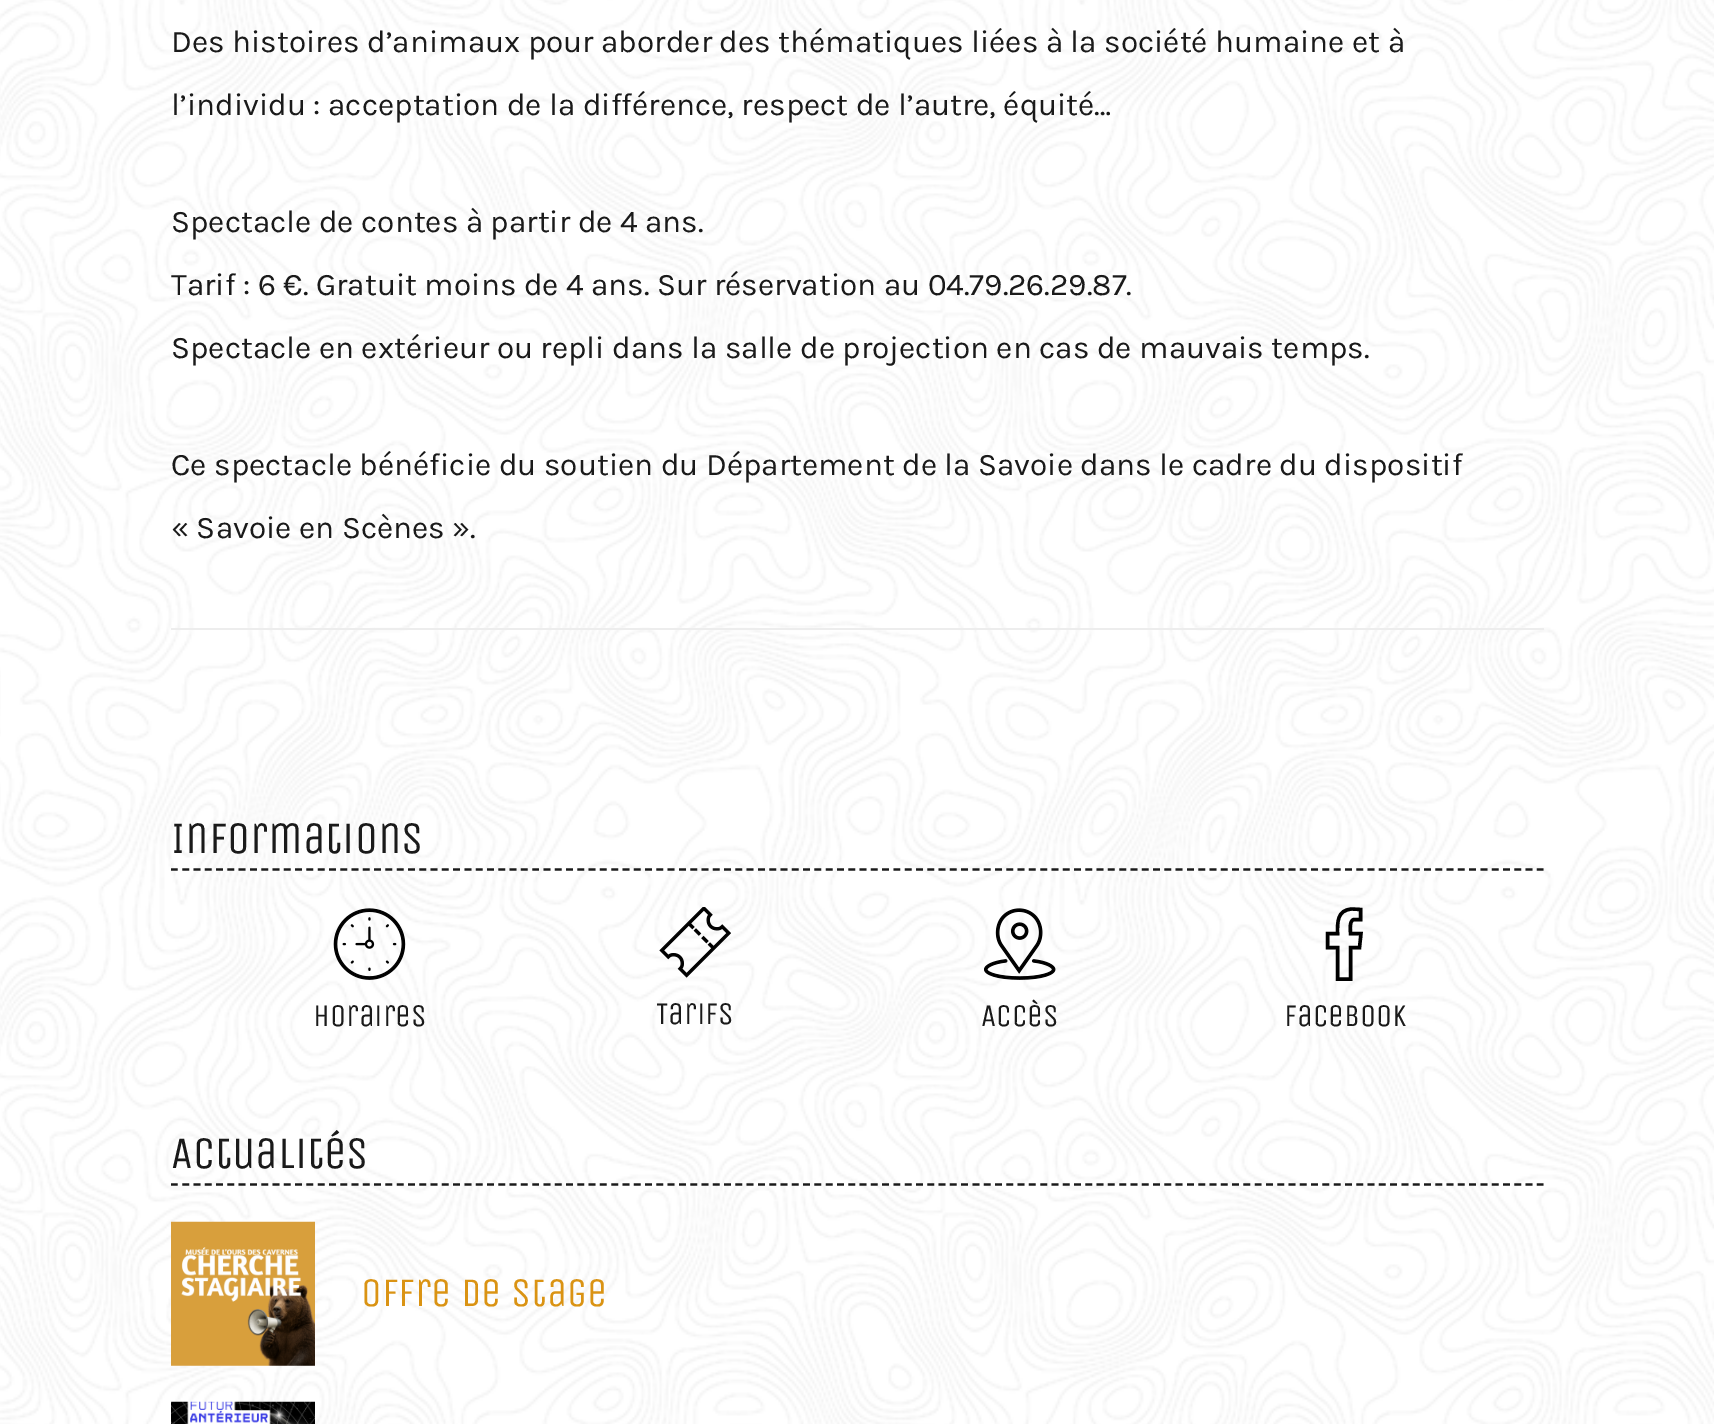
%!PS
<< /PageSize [1714 1424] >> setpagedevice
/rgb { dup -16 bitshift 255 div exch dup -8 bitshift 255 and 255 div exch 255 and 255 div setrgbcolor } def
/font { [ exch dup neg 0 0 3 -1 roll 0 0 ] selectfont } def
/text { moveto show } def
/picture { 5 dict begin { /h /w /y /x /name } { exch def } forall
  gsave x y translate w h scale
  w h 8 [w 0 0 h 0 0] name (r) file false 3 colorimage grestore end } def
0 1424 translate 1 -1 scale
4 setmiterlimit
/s1 { /Karla-Regular 31.5 font 16#1A1A1A rgb } def
/s2 { /UnicaOne-Regular 45 font 16#1A1A1A rgb } def
/s3 { /UnicaOne-Regular 31.5 font 16#1A1A1A rgb } def
/s4 { /UnicaOne-Regular 40.5 font 16#DA9313 rgb } def
16#FFFFFF rgb
0 0 1714 1424 rectfill
(pic1.raw) 0 0 1714 1424 picture
16#EDEDED rgb
171 628 1373 2 rectfill
s1
(Des histoires d’animaux pour aborder des thématiques liées à la société humaine et à) 171 52 text
(l’individu : acceptation de la différence, respect de l’autre, équité…) 171 115 text
(Spectacle de contes à partir de 4 ans.) 171 232 text
(Tarif : 6 €. Gratuit moins de 4 ans. Sur réservation au 04.79.26.29.87.) 171 295 text
(Spectacle en extérieur ou repli dans la salle de projection en cas de mauvais temps.) 171 358 text
(Ce spectacle bénéficie du soutien du Département de la Savoie dans le cadre du dispositif) 171 475 text
(« Savoie en Scènes ».) 171 538 text
2.2 setlinewidth
[6.75 4.54] 0 setdash
171 869.5 moveto 1543.5 869.5 lineto stroke
s2
(Informations) 171 853 text
(pic2.raw) 333 908 73 72 picture
s3
(Horaires) 313 1026 text
(pic3.raw) 659 907 72 71 picture
(Tarifs) 656 1024 text
(pic4.raw) 984 908 72 72 picture
(Accès) 981 1026 text
16#000000 rgb
3.4 setlinewidth
[] 0 setdash
1350.5 979 moveto 1350.5 947.5 lineto 1359.5 947.5 lineto 1361 933.5 lineto 1350.5 933.5 lineto 1350.5 930 1349 920.5 1354 919.5 curveto 1360.5 919.5 lineto 1360.5 909.5 lineto 1352 909 lineto 1337 910 1337.5 922 1337.5 933.5 curveto 1327.5 933.5 lineto 1327.5 947.5 lineto 1337.5 947.5 lineto 1337.5 979 lineto closepath stroke
s3
(Facebook) 1284 1026 text
2.2 setlinewidth
[6.75 4.54] 0 setdash
171 1184.5 moveto 1543.5 1184.5 lineto stroke
s2
(Actualités) 171 1168 text
(pic5.raw) 171 1221 144 145 picture
s4
(Offre de stage) 361 1306 text
(pic6.raw) 171 1401 144 23 picture
showpage
